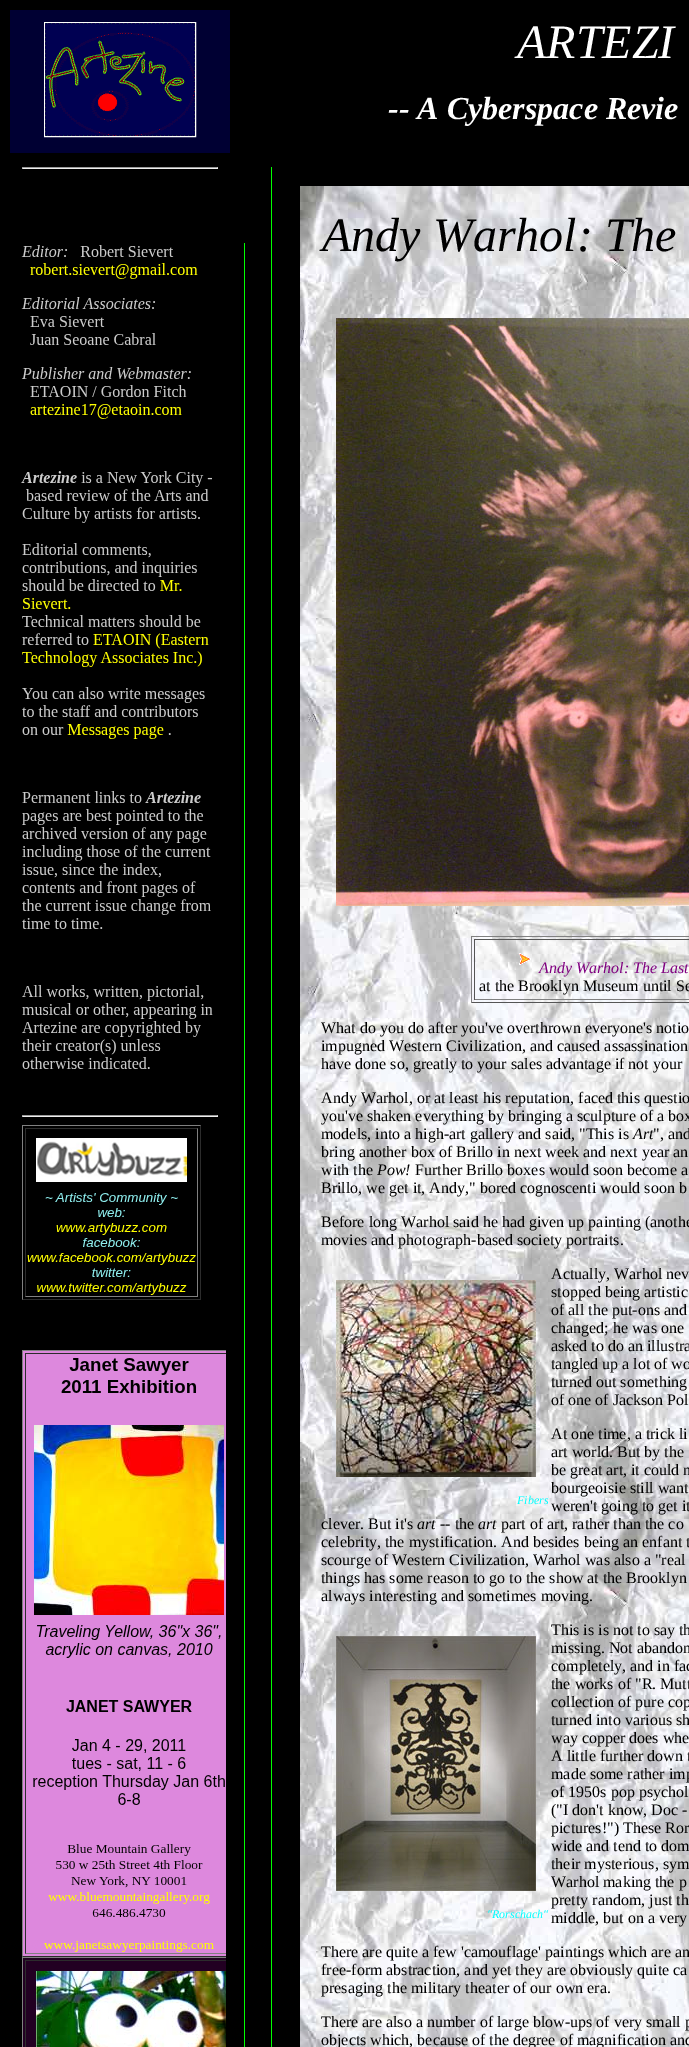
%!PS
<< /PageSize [689 2047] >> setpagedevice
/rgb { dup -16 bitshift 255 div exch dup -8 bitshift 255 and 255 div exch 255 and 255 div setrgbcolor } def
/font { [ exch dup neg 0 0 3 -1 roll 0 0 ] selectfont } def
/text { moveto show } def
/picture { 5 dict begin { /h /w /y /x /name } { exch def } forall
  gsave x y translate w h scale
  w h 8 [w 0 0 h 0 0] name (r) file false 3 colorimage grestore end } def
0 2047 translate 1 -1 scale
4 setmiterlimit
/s1 { /LiberationSerif-Italic 48 font 16#FFFFFF rgb } def
/s2 { /LiberationSerif-BoldItalic 32 font 16#FFFFFF rgb } def
/s3 { /LiberationSerif-Italic 48 font 16#000000 rgb } def
/s4 { /LiberationSerif-Italic 16 font 16#800080 rgb } def
/s5 { /LiberationSerif-Regular 16 font 16#000000 rgb } def
/s6 { /LiberationSerif-Italic 16 font 16#000000 rgb } def
/s7 { /LiberationSerif-Italic 12 font 16#00FFFF rgb } def
16#000000 rgb
0 0 689 2047 rectfill
16#000033 rgb
10 10 220 143 rectfill
16#FFFFFF rgb
44.5 22.5 151 114 rectstroke
(pic1.raw) 45 23 150 113 picture
s1
(ARTEZI) 517 58 text
s2
(-- A Cyberspace Revie) 388 119 text
(pic2.raw) 21 167 205 1880 picture
16#00FF00 rgb
244 243 1 1804 rectfill
271 167 1 1880 rectfill
(pic3.raw) 300 186 389 1861 picture
s3
(Andy Warhol: The) 322 251 text
(pic4.raw) 336 318 353 588 picture
16#808080 rgb
471 936 218 1 rectfill
16#555555 rgb
471 1002 218 1 rectfill
16#808080 rgb
471 936 1 67 rectfill
16#555555 rgb
474 939 215 1 rectfill
16#808080 rgb
474 999 215 1 rectfill
16#555555 rgb
474 939 1 61 rectfill
(pic5.raw) 519 953 12 12 picture
s4
(Andy Warhol: The Last) 539 973 text
s5
(at the Brooklyn Museum until Se) 479 991 text
(What do you do after you've overthrown everyone's notio) 321 1033 text
(impugned Western Civilization, and caused assassination) 321 1051 text
(have done so, greatly to your sales advantage if not your) 321 1069 text
(Andy Warhol, or at least his reputation, faced this questio) 321 1103 text
(you've shaken everything by bringing a sculpture of a box) 321 1121 text
(models, into a high-art gallery and said, "This is) 321 1139 text
s6
(Art) 633 1139 text
s5
(", and) 653 1139 text
(bring another box of Brillo in next week and next year an) 321 1157 text
(with the) 321 1175 text
s6
(Pow!) 377 1175 text
s5
(Further Brillo boxes would soon become a) 415 1175 text
(Brillo, we get it, Andy," bored cognoscenti would soon b) 321 1193 text
(Before long Warhol said he had given up painting \(anothe) 321 1227 text
(movies and photograph-based society portraits.) 321 1245 text
(Actually, Warhol nev) 551 1279 text
(stopped being artistic) 551 1297 text
(of all the put-ons and) 551 1315 text
(changed; he was one) 551 1333 text
(asked to do an illustra) 551 1351 text
(tangled up a lot of wo) 551 1369 text
(turned out something) 551 1387 text
(of one of Jackson Pol) 551 1405 text
(pic6.raw) 336 1280 200 197 picture
s7
(Fibers) 517 1504 text
s5
(At one time, a trick li) 551 1439 text
(art world. But by the) 551 1457 text
(be great art, it could n) 551 1475 text
(bourgeoisie still want) 551 1493 text
(weren't going to get it) 551 1511 text
(clever. But it's) 321 1529 text
s6
(art) 417 1529 text
s5
(-- the) 440 1529 text
s6
(art) 478 1529 text
s5
(part of art, rather than the co) 501 1529 text
(celebrity, the mystification. And besides being an enfant t) 321 1547 text
(scourge of Western Civilization, Warhol was also a "real) 321 1565 text
(things has some reason to go to the show at the Brooklyn) 321 1583 text
(always interesting and sometimes moving.) 321 1601 text
(This is is not to say th) 551 1635 text
(missing. Not abandon) 551 1653 text
(completely, and in fac) 551 1671 text
(the works of "R. Mutt) 551 1689 text
(collection of pure cop) 551 1707 text
(turned into various sh) 551 1725 text
(way copper does whe) 551 1743 text
(A little further down t) 551 1761 text
(made some rather imp) 551 1779 text
(of 1950s pop psychol) 551 1797 text
(\("I don't know, Doc -) 551 1815 text
(pictures!"\) These Ror) 551 1833 text
(wide and tend to dom) 551 1851 text
(their mysterious, sym) 551 1869 text
(Warhol making the p) 551 1887 text
(pretty random, just th) 551 1905 text
(pic7.raw) 336 1636 200 255 picture
s7
("Rorschach") 487 1918 text
s5
(middle, but on a very) 551 1923 text
(There are quite a few 'camouflage' paintings which are an) 321 1957 text
(free-form abstraction, and yet they are obviously quite ca) 321 1975 text
(presaging the military theater of our own era.) 321 1993 text
(There are also a number of large blow-ups of very small p) 321 2027 text
(objects which, because of the degree of magnification and) 321 2045 text
showpage
